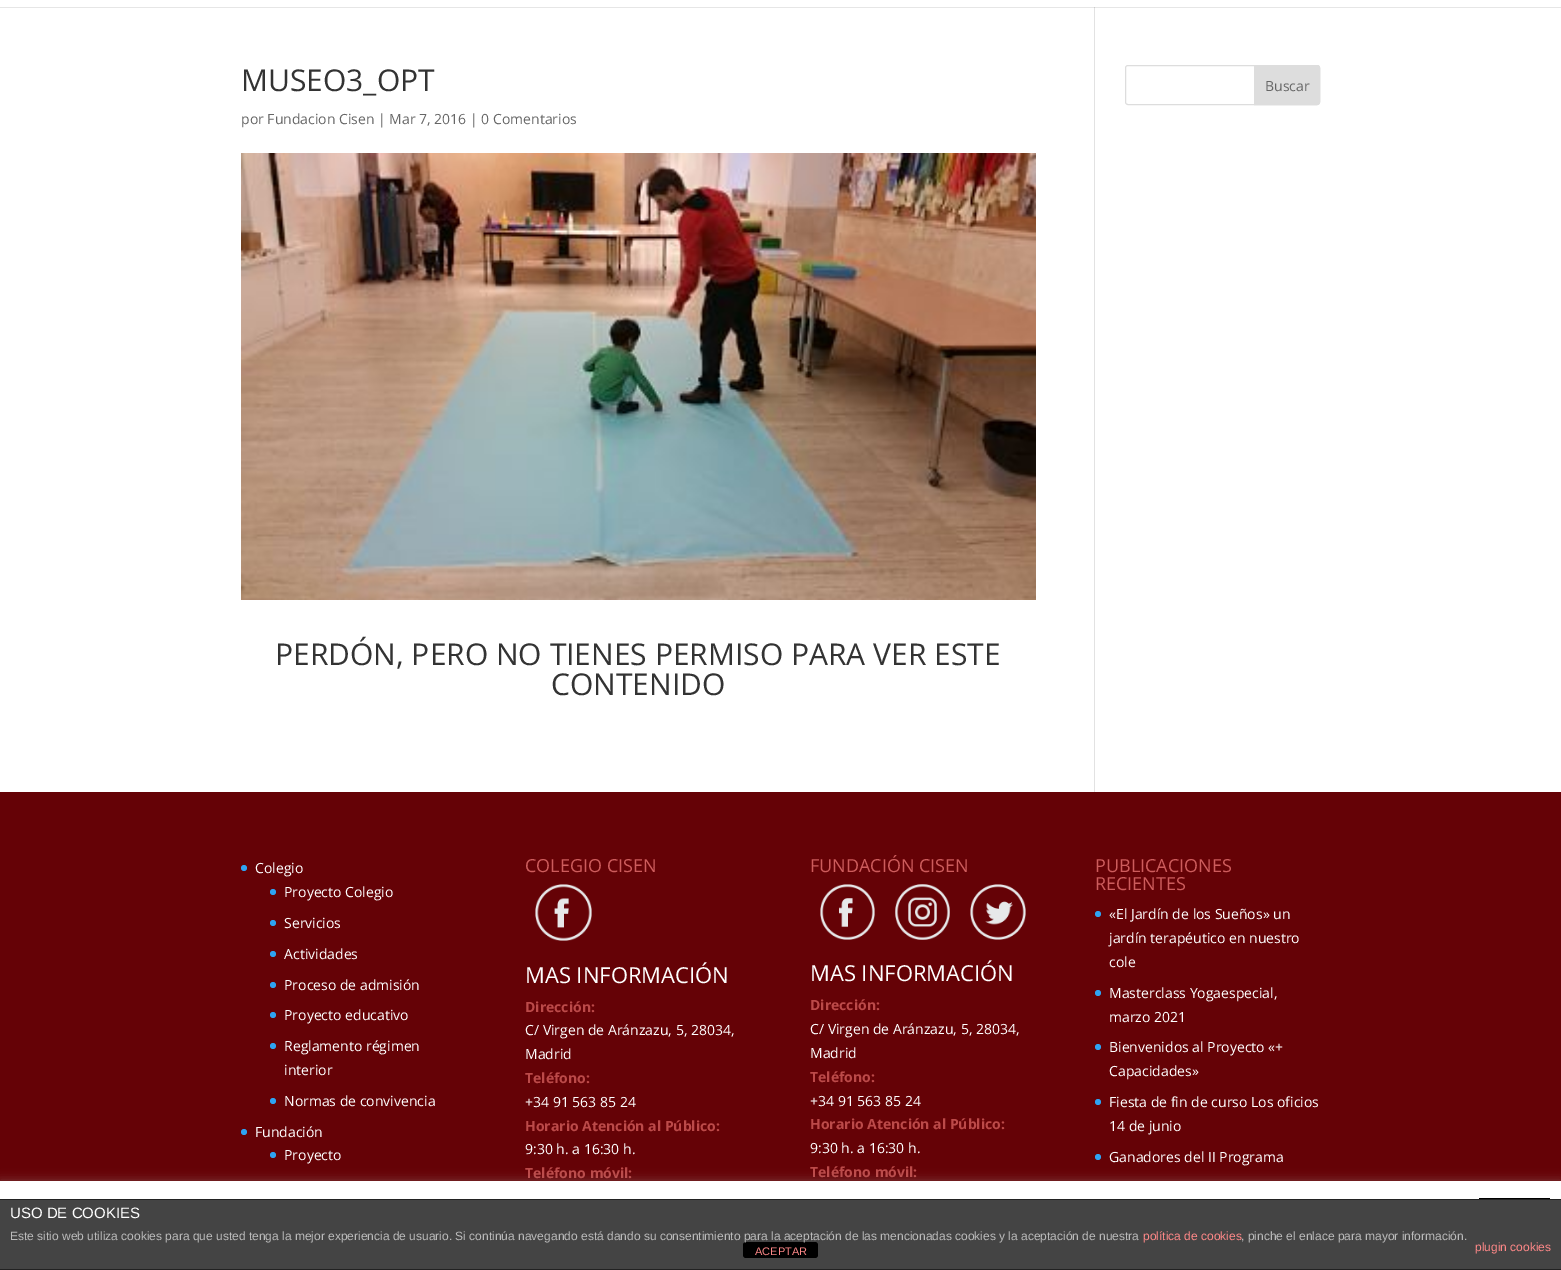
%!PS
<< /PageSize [1561 1270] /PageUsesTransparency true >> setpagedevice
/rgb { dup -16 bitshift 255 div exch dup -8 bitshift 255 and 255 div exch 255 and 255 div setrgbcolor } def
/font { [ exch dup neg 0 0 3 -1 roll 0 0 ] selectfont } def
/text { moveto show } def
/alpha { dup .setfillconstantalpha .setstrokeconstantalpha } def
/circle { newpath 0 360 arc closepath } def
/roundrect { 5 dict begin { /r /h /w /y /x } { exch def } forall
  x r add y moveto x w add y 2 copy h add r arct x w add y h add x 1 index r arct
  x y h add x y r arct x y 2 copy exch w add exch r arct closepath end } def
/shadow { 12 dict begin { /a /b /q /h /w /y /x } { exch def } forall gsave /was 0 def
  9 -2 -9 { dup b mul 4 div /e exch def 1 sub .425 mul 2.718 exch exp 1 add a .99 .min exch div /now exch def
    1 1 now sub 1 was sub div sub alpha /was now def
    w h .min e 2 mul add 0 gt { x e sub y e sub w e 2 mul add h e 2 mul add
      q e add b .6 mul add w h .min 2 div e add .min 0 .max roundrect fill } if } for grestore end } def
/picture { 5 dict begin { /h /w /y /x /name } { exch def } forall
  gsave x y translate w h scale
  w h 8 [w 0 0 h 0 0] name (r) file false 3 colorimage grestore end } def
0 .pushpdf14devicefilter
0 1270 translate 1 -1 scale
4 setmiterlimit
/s1 { /OpenSans-Regular 30 font 16#333333 rgb } def
/s2 { /OpenSans-Regular 14 font 16#666666 rgb } def
/s3 { /OpenSans-Regular 14 font 16#FFFFFF rgb } def
/s4 { /OpenSans-Regular 18 font 16#CD5C5C rgb } def
/s5 { /OpenSans-Regular 22 font 16#FFFFFF rgb } def
/s6 { /OpenSans-Bold 14 font 16#BC4A49 rgb } def
/s7 { /LiberationSans-Regular 15 font 16#FFFFFF rgb } def
/s8 { /LiberationSans-Regular 12 font 16#BBBBBB rgb } def
/s9 { /LiberationSans-Regular 12 font 16#FF8888 rgb } def
/s10 { /LiberationSans-Regular 11 font 16#FF8888 rgb } def
16#FFFFFF rgb
0 0 1561 1270 rectfill
16#E6E6E6 rgb
0 7 1561 1 rectfill
16#E2E2E2 rgb
1094 7 1 785 rectfill
16#CBCBCB rgb
1094 7 1 1 rectfill
s1
(MUSEO3_OPT) 241 91 text
s2
(por Fundacion Cisen | Mar 7, 2016 | 0 Comentarios) 241 124 text
(pic1.raw) 241 153 795 447 picture
s1
(PERDÓN, PERO NO TIENES PERMISO PARA VER ESTE) 275 665 text
(CONTENIDO) 551 695 text
16#DDDDDD rgb
1125.5 65.5 194 39 2.5 roundrect stroke
1254.5 65.5 moveto 1317 65.5 lineto 1318.5 65.5 1319.5 66.5 1319.5 68 curveto 1319.5 102 lineto 1319.5 103.5 1318.5 104.5 1317 104.5 curveto 1254.5 104.5 lineto closepath gsave fill grestore
stroke
s2
(Buscar) 1265 91 text
16#650206 rgb
0 792 1561 389 rectfill
16#2EA3F2 rgb
244 868 3 circle fill
s3
(Colegio) 255 873 text
16#2EA3F2 rgb
273 892 3 circle fill
s3
(Proyecto Colegio) 284 897 text
16#2EA3F2 rgb
273 923 3 circle fill
s3
(Servicios) 284 928 text
16#2EA3F2 rgb
273 954 3 circle fill
s3
(Actividades) 284 959 text
16#2EA3F2 rgb
273 985 3 circle fill
s3
(Proceso de admisión) 284 990 text
16#2EA3F2 rgb
273 1015 3 circle fill
s3
(Proyecto educativo) 284 1020 text
16#2EA3F2 rgb
273 1046 3 circle fill
s3
(Reglamento régimen) 284 1051 text
(interior) 284 1075 text
16#2EA3F2 rgb
273 1101 3 circle fill
s3
(Normas de convivencia) 284 1106 text
16#2EA3F2 rgb
244 1132 3 circle fill
s3
(Fundación) 255 1137 text
16#2EA3F2 rgb
273 1155 3 circle fill
s3
(Proyecto) 284 1160 text
s4
(COLEGIO CISEN) 525 872 text
(pic2.raw) 535 884 57 57 picture
s5
(MAS INFORMACIÓN) 525 983 text
s6
(Dirección:) 525 1012 text
s3
(C/ Virgen de Aránzazu, 5, 28034,) 525 1035 text
(Madrid) 525 1059 text
s6
(Teléfono:) 525 1083 text
s3
(+34 91 563 85 24) 525 1107 text
s6
(Horario Atención al Público:) 525 1131 text
s3
(9:30 h. a 16:30 h.) 525 1154 text
s6
(Teléfono móvil:) 525 1178 text
s4
(FUNDACIÓN CISEN) 810 872 text
(pic3.raw) 820 884 55 56 picture
(pic4.raw) 895 884 55 56 picture
(pic5.raw) 970 884 56 56 picture
s5
(MAS INFORMACIÓN) 810 981 text
s6
(Dirección:) 810 1010 text
s3
(C/ Virgen de Aránzazu, 5, 28034,) 810 1034 text
(Madrid) 810 1058 text
s6
(Teléfono:) 810 1082 text
s3
(+34 91 563 85 24) 810 1106 text
s6
(Horario Atención al Público:) 810 1129 text
s3
(9:30 h. a 16:30 h.) 810 1153 text
s6
(Teléfono móvil:) 810 1177 text
s4
(PUBLICACIONES) 1095 872 text
(RECIENTES) 1095 890 text
16#2EA3F2 rgb
1098 914 3 circle fill
s3
(«El Jardín de los Sueños» un) 1109 919 text
(jardín terapéutico en nuestro) 1109 943 text
(cole) 1109 967 text
16#2EA3F2 rgb
1098 993 3 circle fill
s3
(Masterclass Yogaespecial,) 1109 998 text
(marzo 2021) 1109 1022 text
16#2EA3F2 rgb
1098 1047 3 circle fill
s3
(Bienvenidos al Proyecto «+) 1109 1052 text
(Capacidades») 1109 1076 text
16#2EA3F2 rgb
1098 1102 3 circle fill
s3
(Fiesta de fin de curso Los oficios) 1109 1107 text
(14 de junio) 1109 1131 text
16#2EA3F2 rgb
1098 1157 3 circle fill
s3
(Ganadores del II Programa) 1109 1162 text
16#ACABAB rgb
0 1180 1561 89 0 5 0.3 shadow
16#FFFFFF rgb
0 1181 1561 18 rectfill
16#000000 rgb
1479 1198 71 1 rectfill
16#444444 rgb
0 1200 1561 69 rectfill
16#222222 rgb
0 1199 1561 1 rectfill
0 1269 1561 1 rectfill
s7
(USO DE COOKIES) 10 1218 text
16#000000 rgb
743 1242 75 16 3 roundrect fill
s8
(Este sitio web utiliza cookies para que usted tenga la mejor experiencia de usuario. Si continúa navegando está dando su consentimiento para la aceptación de las mencionadas cookies y la aceptación de nuestra) 10 1240 text
s9
(política de cookies) 1143 1240 text
s8
(, pinche el enlace para mayor información.) 1241 1240 text
s9
(plugin cookies) 1475 1251 text
s10
(ACEPTAR) 755 1255 text
.poppdf14devicefilter showpage
